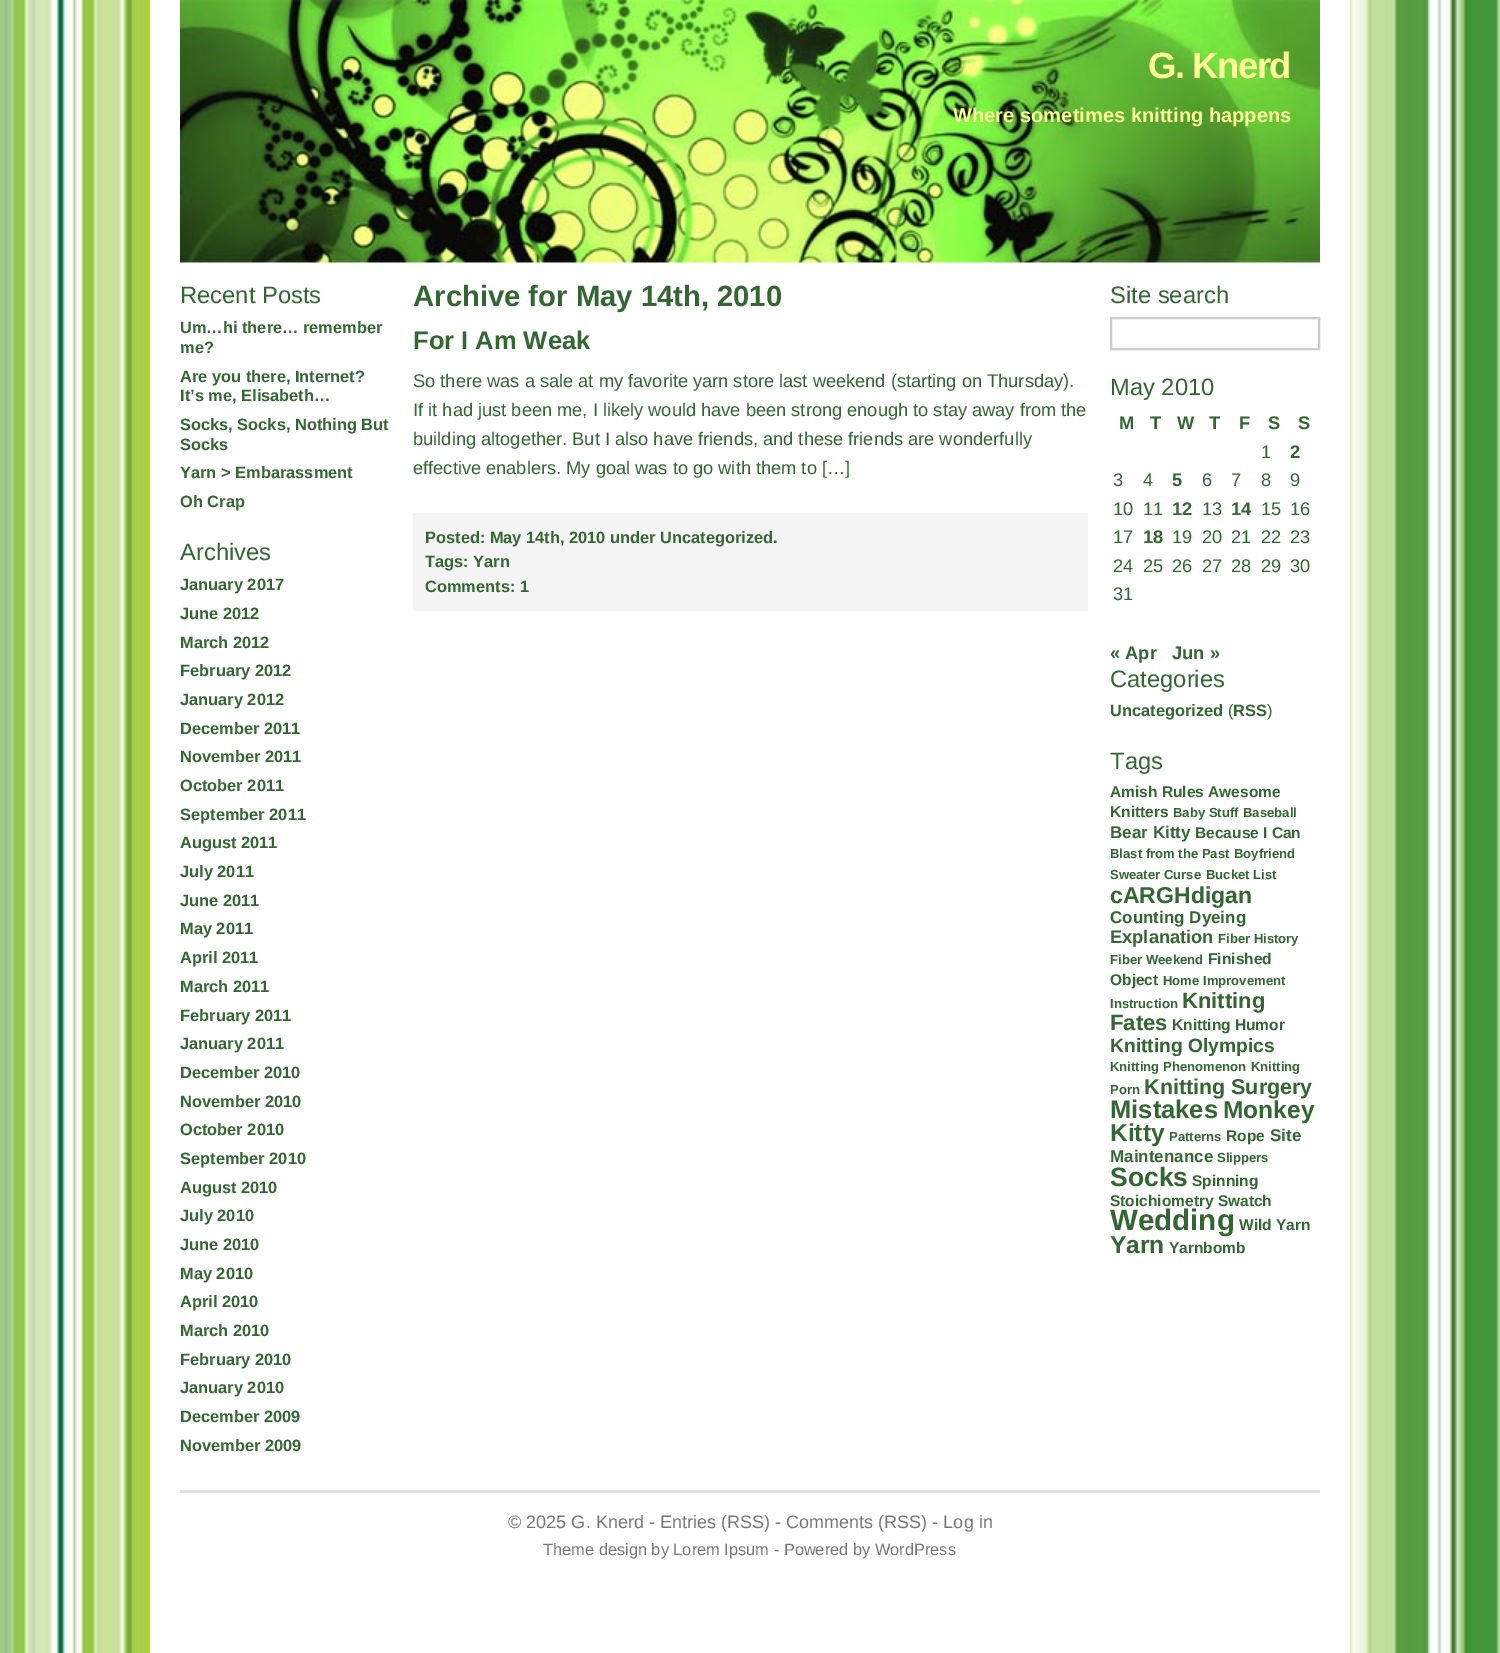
%!PS
<< /PageSize [1500 1653] >> setpagedevice
/rgb { dup -16 bitshift 255 div exch dup -8 bitshift 255 and 255 div exch 255 and 255 div setrgbcolor } def
/font { [ exch dup neg 0 0 3 -1 roll 0 0 ] selectfont } def
/text { moveto show } def
/picture { 5 dict begin { /h /w /y /x /name } { exch def } forall
  gsave x y translate w h scale
  w h 8 [w 0 0 h 0 0] name (r) file false 3 colorimage grestore end } def
0 1653 translate 1 -1 scale
4 setmiterlimit
/s1 { /LiberationSans-Bold 20.1 font 16#FFFF99 rgb } def
/s2 { /LiberationSans-Regular 23.75 font 16#336633 rgb } def
/s3 { /LiberationSans-Bold 16.4 font 16#336633 rgb } def
/s4 { /LiberationSans-Bold 29.25 font 16#336633 rgb } def
/s5 { /LiberationSans-Bold 25.5 font 16#336633 rgb } def
/s6 { /LiberationSans-Regular 18.25 font 16#336633 rgb } def
/s7 { /LiberationSans-Bold 18.25 font 16#336633 rgb } def
/s8 { /LiberationSans-Regular 16.4 font 16#336633 rgb } def
/s9 { /LiberationSans-Bold 15.5 font 16#336633 rgb } def
/s10 { /LiberationSans-Bold 13.1 font 16#336633 rgb } def
/s11 { /LiberationSans-Bold 17 font 16#336633 rgb } def
/s12 { /LiberationSans-Bold 23 font 16#336633 rgb } def
/s13 { /LiberationSans-Bold 22 font 16#336633 rgb } def
/s14 { /LiberationSans-Bold 19.25 font 16#336633 rgb } def
/s15 { /LiberationSans-Bold 21.5 font 16#336633 rgb } def
/s16 { /LiberationSans-Bold 24.5 font 16#336633 rgb } def
/s17 { /LiberationSans-Bold 26.5 font 16#336633 rgb } def
/s18 { /LiberationSans-Bold 29.5 font 16#336633 rgb } def
/s19 { /LiberationSans-Regular 18.05 font 16#777777 rgb } def
/s20 { /LiberationSans-Regular 16.4 font 16#777777 rgb } def
16#FFFFFF rgb
0 0 1500 1653 rectfill
(pic1.raw) 0 0 1500 1653 picture
(pic2.raw) 180 0 1140 263 picture
/LiberationSans-Bold 36.5 font
16#FFFF99 rgb
1148 78 moveto -1.5 0 (G. Knerd) ashow
s1
(Where sometimes knitting happens) 953 122 text
s2
(Recent Posts) 180 303 text
s3
(Um…hi there… remember) 180 333 text
(me?) 180 353 text
(Are you there, Internet?) 180 382 text
(It’s me, Elisabeth…) 180 401 text
(Socks, Socks, Nothing But) 180 430 text
(Socks) 180 450 text
(Yarn > Embarassment) 180 478 text
(Oh Crap) 180 507 text
s2
(Archives) 180 560 text
s3
(January 2017) 180 590 text
(June 2012) 180 619 text
(March 2012) 180 648 text
(February 2012) 180 676 text
(January 2012) 180 705 text
(December 2011) 180 734 text
(November 2011) 180 762 text
(October 2011) 180 791 text
(September 2011) 180 820 text
(August 2011) 180 848 text
(July 2011) 180 877 text
(June 2011) 180 906 text
(May 2011) 180 934 text
(April 2011) 180 963 text
(March 2011) 180 992 text
(February 2011) 180 1021 text
(January 2011) 180 1049 text
(December 2010) 180 1078 text
(November 2010) 180 1107 text
(October 2010) 180 1135 text
(September 2010) 180 1164 text
(August 2010) 180 1193 text
(July 2010) 180 1221 text
(June 2010) 180 1250 text
(May 2010) 180 1279 text
(April 2010) 180 1307 text
(March 2010) 180 1336 text
(February 2010) 180 1365 text
(January 2010) 180 1393 text
(December 2009) 180 1422 text
(November 2009) 180 1451 text
s4
(Archive for May 14th, 2010) 413 306 text
s5
(For I Am Weak) 413 349 text
s6
(So there was a sale at my favorite yarn store last weekend \(starting on Thursday\).) 413 387 text
(If it had just been me, I likely would have been strong enough to stay away from the) 413 416 text
(building altogether. But I also have friends, and these friends are wonderfully) 413 445 text
(effective enablers. My goal was to go with them to […]) 413 474 text
16#F4F4F4 rgb
413 513 675 98 rectfill
s3
(Posted: May 14th, 2010 under Uncategorized.) 425 543 text
(Tags: Yarn) 425 567 text
(Comments: 1) 425 592 text
s2
(Site search) 1110 303 text
16#CCCCCC rgb
2 setlinewidth
1111 318 208 31 rectstroke
s2
(May 2010) 1110 395 text
s7
(M) 1119 429 text
(T) 1150 429 text
(W) 1177 429 text
(T) 1209 429 text
(F) 1239 429 text
(S) 1268 429 text
(S) 1298 429 text
s6
(1) 1261 458 text
s7
(2) 1290 458 text
s6
(3) 1113 486 text
(4) 1143 486 text
s7
(5) 1172 486 text
s6
(6) 1202 486 text
(7) 1231 486 text
(8) 1261 486 text
(9) 1290 486 text
(10) 1113 515 text
(11) 1143 515 text
s7
(12) 1172 515 text
s6
(13) 1202 515 text
s7
(14) 1231 515 text
s6
(15) 1261 515 text
(16) 1290 515 text
(17) 1113 543 text
s7
(18) 1143 543 text
s6
(19) 1172 543 text
(20) 1202 543 text
(21) 1231 543 text
(22) 1261 543 text
(23) 1290 543 text
(24) 1113 572 text
(25) 1143 572 text
(26) 1172 572 text
(27) 1202 572 text
(28) 1231 572 text
(29) 1261 572 text
(30) 1290 572 text
(31) 1113 600 text
s7
(« Apr) 1110 659 text
(Jun ») 1172 659 text
s2
(Categories) 1110 687 text
s3
(Uncategorized) 1110 716 text
s8
(\() 1228 716 text
s3
(RSS) 1233 716 text
s8
(\)) 1267 716 text
s2
(Tags) 1110 769 text
s9
(Amish Rules Awesome) 1110 797 text
(Knitters) 1110 817 text
s10
(Baby Stuff) 1173 817 text
(Baseball) 1243 817 text
s11
(Bear Kitty) 1110 838 text
s9
(Because I Can) 1195 838 text
s10
(Blast from the Past) 1110 858 text
(Boyfriend) 1234 858 text
(Sweater Curse) 1110 879 text
(Bucket List) 1206 879 text
s12
(cARGHdigan) 1110 903 text
s11
(Counting Dyeing) 1110 923 text
s7
(Explanation) 1110 943 text
s10
(Fiber History) 1218 943 text
(Fiber Weekend) 1110 964 text
s9
(Finished) 1208 964 text
(Object) 1110 985 text
s10
(Home Improvement) 1163 985 text
(Instruction) 1110 1008 text
s13
(Knitting) 1182 1008 text
(Fates) 1110 1030 text
s9
(Knitting Humor) 1172 1030 text
s14
(Knitting Olympics) 1110 1052 text
s10
(Knitting Phenomenon) 1110 1071 text
(Knitting) 1251 1071 text
(Porn) 1110 1094 text
s15
(Knitting Surgery) 1144 1094 text
s5
(Mistakes) 1110 1118 text
s16
(Monkey) 1223 1118 text
(Kitty) 1110 1141 text
s10
(Patterns) 1169 1141 text
s9
(Rope) 1226 1141 text
s11
(Site) 1270 1141 text
(Maintenance) 1110 1162 text
s10
(Slippers) 1217 1162 text
s17
(Socks) 1110 1186 text
s9
(Spinning) 1192 1186 text
(Stoichiometry Swatch) 1110 1206 text
s18
(Wedding) 1110 1230 text
s9
(Wild Yarn) 1239 1230 text
s16
(Yarn) 1110 1253 text
s9
(Yarnbomb) 1169 1253 text
16#E0E0E0 rgb
180 1490 1140 3 rectfill
s19
(© 2025 G. Knerd - Entries \(RSS\) - Comments \(RSS\) - Log in) 508 1528 text
s20
(Theme design by Lorem Ipsum - Powered by WordPress) 543 1555 text
showpage
